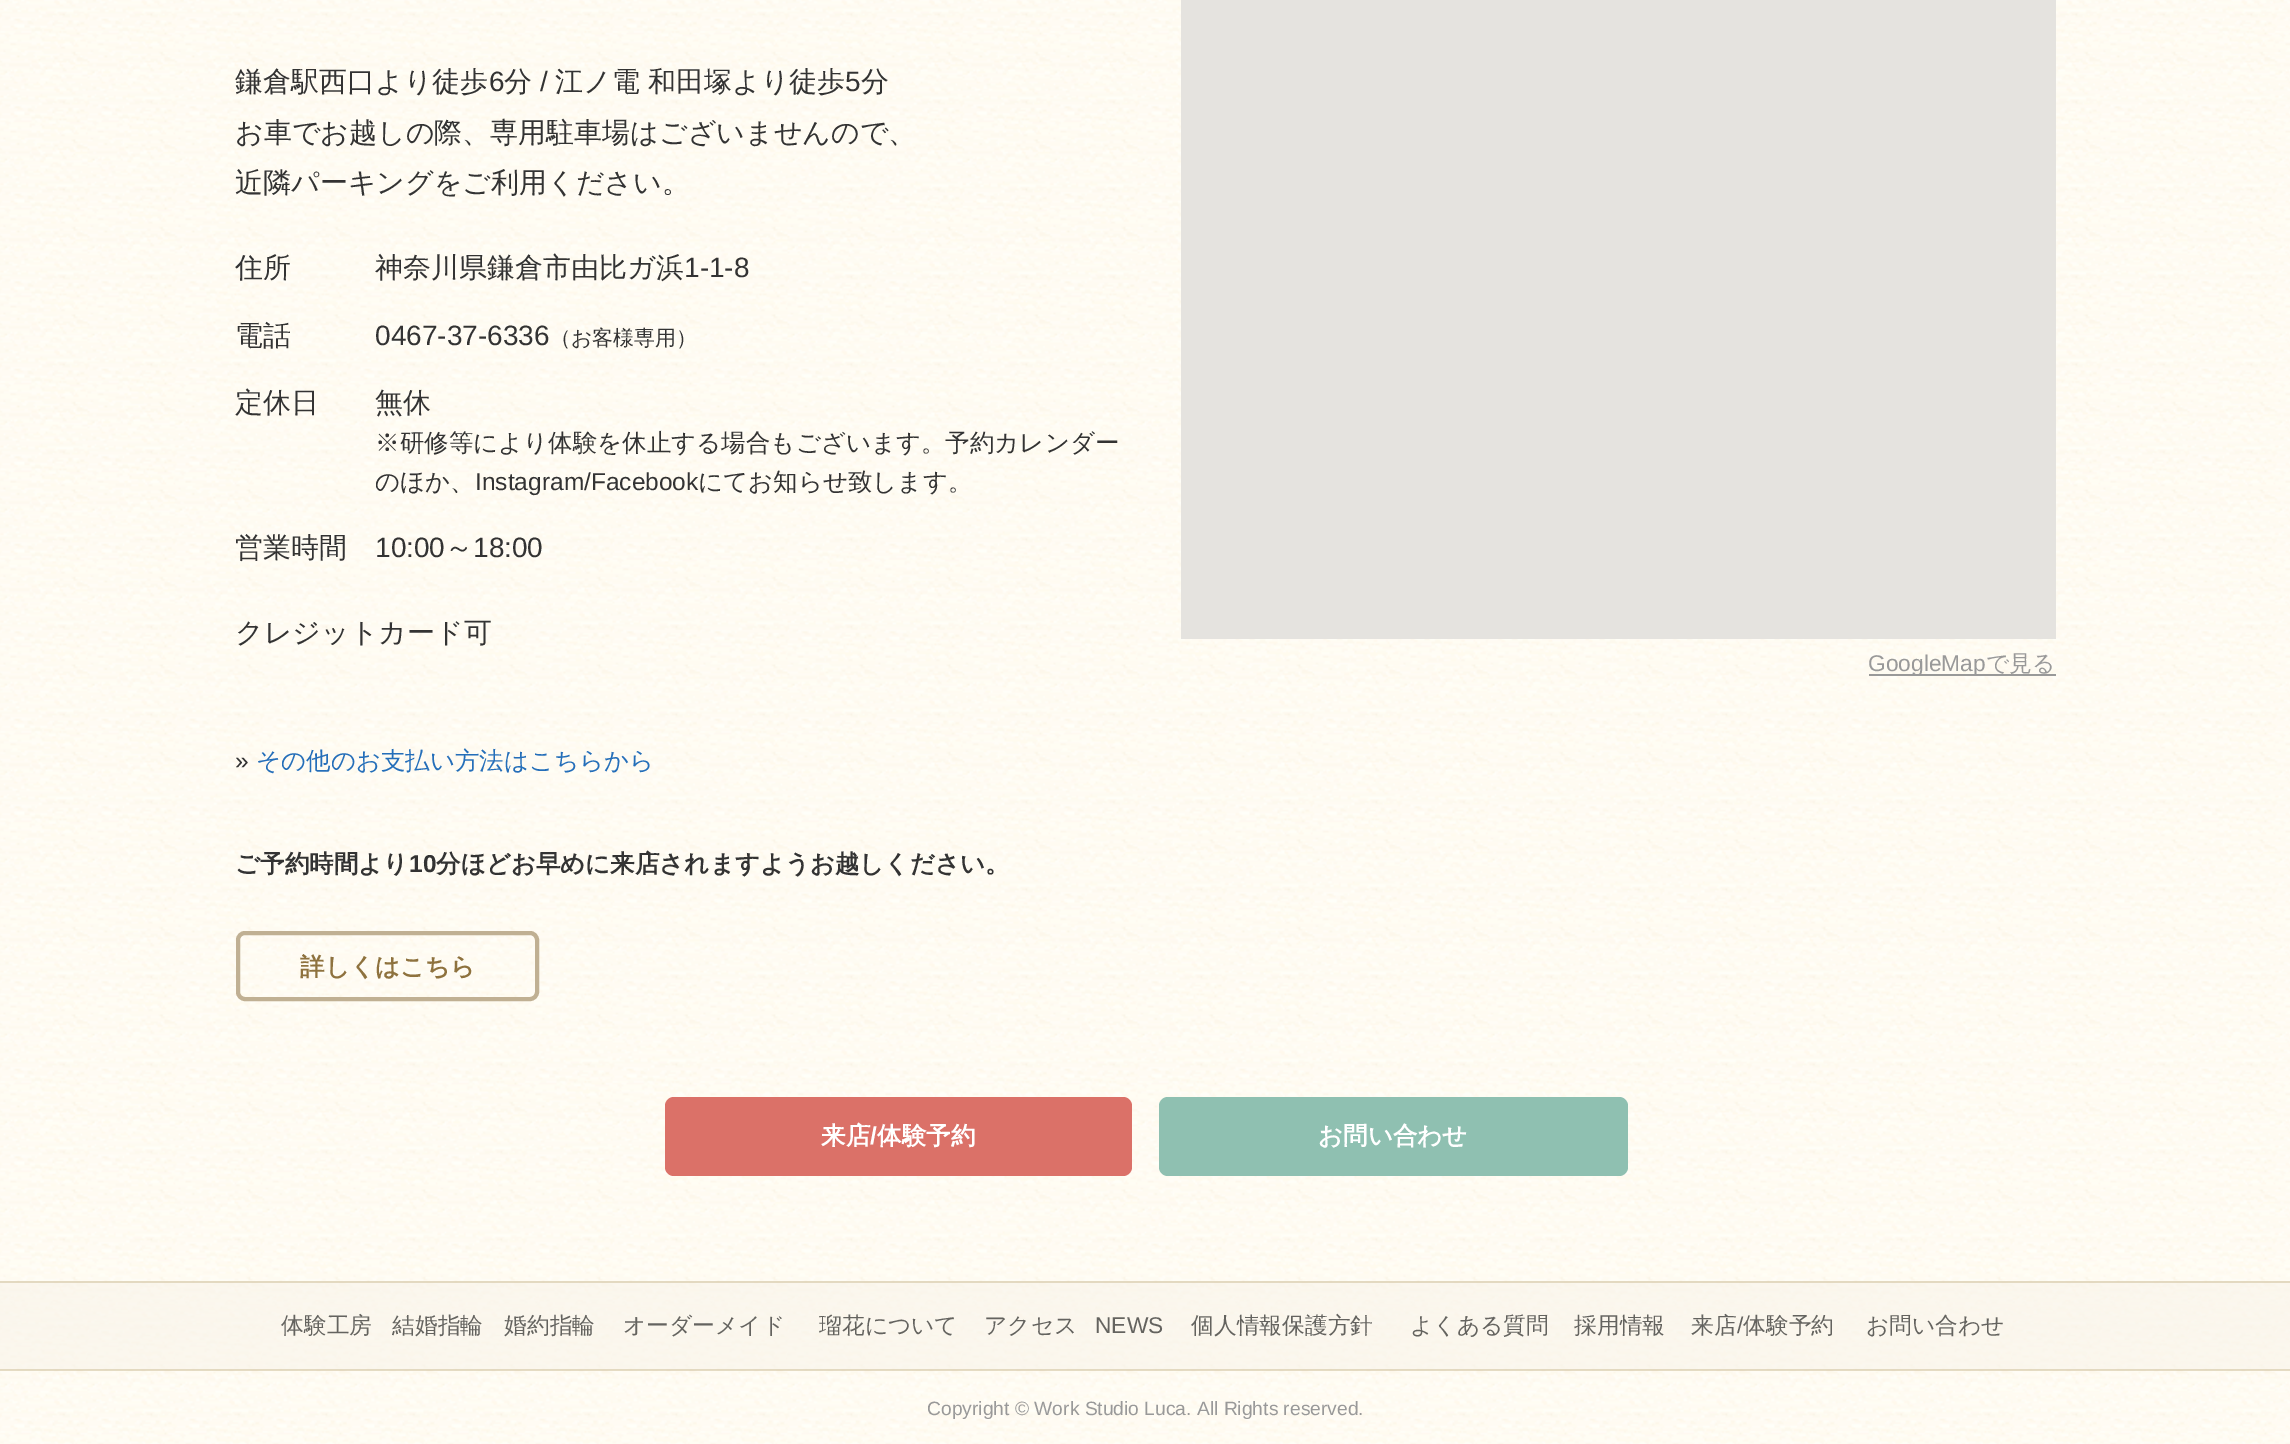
%!PS
<< /PageSize [2290 1444] /PageUsesTransparency true >> setpagedevice
/rgb { dup -16 bitshift 255 div exch dup -8 bitshift 255 and 255 div exch 255 and 255 div setrgbcolor } def
/font { [ exch dup neg 0 0 3 -1 roll 0 0 ] selectfont } def
/text { moveto show } def
/alpha { dup .setfillconstantalpha .setstrokeconstantalpha } def
/roundrect { 5 dict begin { /r /h /w /y /x } { exch def } forall
  x r add y moveto x w add y 2 copy h add r arct x w add y h add x 1 index r arct
  x y h add x y r arct x y 2 copy exch w add exch r arct closepath end } def
/picture { 5 dict begin { /h /w /y /x /name } { exch def } forall
  gsave x y translate w h scale
  w h 8 [w 0 0 h 0 0] name (r) file false 3 colorimage grestore end } def
0 .pushpdf14devicefilter
0 1444 translate 1 -1 scale
4 setmiterlimit
/s1 { /WenQuanYiZenHei-Medium 28 font 16#333333 rgb } def
/s2 { /LiberationSans-Regular 28 font 16#333333 rgb } def
/s3 { /WenQuanYiZenHei-Medium 21 font 16#333333 rgb } def
/s4 { /WenQuanYiZenHei-Medium 24.5 font 16#333333 rgb } def
/s5 { /LiberationSans-Regular 24.5 font 16#333333 rgb } def
/s6 { /WenQuanYiZenHei-Medium 24.5 font 16#246EB9 rgb } def
/s7 { /WenQuanYiZenHei-Bold 24.5 font 16#333333 rgb } def
/s8 { /LiberationSans-Bold 24.5 font 16#333333 rgb } def
/s9 { /WenQuanYiZenHei-Bold 24.5 font 16#8E723E rgb } def
/s10 { /LiberationSans-Regular 22.75 font 16#999999 rgb } def
/s11 { /WenQuanYiZenHei-Medium 22.75 font 16#999999 rgb } def
/s12 { /WenQuanYiZenHei-Bold 24.5 font 16#FFFFFF rgb } def
/s13 { /LiberationSans-Bold 24.5 font 16#FFFFFF rgb } def
/s14 { /WenQuanYiZenHei-Medium 22.75 font 16#64635F rgb } def
/s15 { /LiberationSans-Regular 22.75 font 16#64635F rgb } def
/s16 { /LiberationSans-Regular 19.25 font 16#999999 rgb } def
16#FFFFFF rgb
0 0 2290 1444 rectfill
(pic1.raw) 0 0 2290 1444 picture
s1
(鎌倉駅西口より徒歩) 235 91 text
s2
(6) 489 91 text
s1
(分) 504 91 text
s2
(/) 540 91 text
s1
(江ノ電 和田塚より徒歩) 555 91 text
s2
(5) 845 91 text
s1
(分) 861 91 text
(お車でお越しの際、専用駐車場はございませんので、) 235 142 text
(近隣パーキングをご利用ください。) 235 192 text
(住所) 235 277 text
(神奈川県鎌倉市由比ガ浜) 375 277 text
s2
(1-1-8) 684 277 text
s1
(電話) 235 345 text
s2
(0467-37-6336) 375 345 text
s3
(（お客様専用）) 550 345 text
s1
(定休日) 235 412 text
(無休) 375 412 text
s4
(※研修等により体験を休止する場合もございます。予約カレンダー) 375 451 text
(のほか、) 375 490 text
s5
(Instagram/Facebook) 475 490 text
s4
(にてお知らせ致します。) 698 490 text
s1
(営業時間) 235 557 text
s2
(10:00) 375 557 text
s1
(～) 445 557 text
s2
(18:00) 473 557 text
s1
(クレジットカード可) 235 642 text
s5
(») 235 769 text
s6
(その他のお支払い方法はこちらから) 256 769 text
s7
(ご予約時間より) 235 872 text
s8
(10) 409 872 text
s7
(分ほどお早めに来店されますようお越しください。) 436 872 text
16#C0B093 rgb
4 setlinewidth
238 933 299 66 7 roundrect stroke
s9
(詳しくはこちら) 300 975 text
16#E5E3DF rgb
1181 0 875 639 rectfill
16#999999 rgb
1869 674 187 2 rectfill
s10
(GoogleMap) 1868 671 text
s11
(で見る) 1986 671 text
16#DB7168 rgb
665 1097 467 79 9 roundrect fill
s12
(来店) 821 1144 text
s13
(/) 870 1144 text
s12
(体験予約) 877 1144 text
16#8FC0B1 rgb
1159 1097 469 79 9 roundrect fill
s12
(お問い合わせ) 1318 1144 text
0.6 alpha
16#F8F3E9 rgb
0 1281 2290 89 rectfill
16#D3C5A3 rgb
0 1281 2290 2 rectfill
0 1369 2290 2 rectfill
1 alpha
s14
(体験工房) 281 1333 text
(結婚指輪) 392 1333 text
(婚約指輪) 504 1333 text
(オーダーメイド) 623 1333 text
(瑠花について) 819 1333 text
(アクセス) 984 1333 text
s15
(NEWS) 1095 1333 text
s14
(個人情報保護方針) 1191 1333 text
(よくある質問) 1410 1333 text
(採用情報) 1574 1333 text
(来店) 1691 1333 text
s15
(/) 1737 1333 text
s14
(体験予約) 1743 1333 text
(お問い合わせ) 1866 1333 text
s16
(Copyright © Work Studio Luca. All Rights reserved.) 927 1415 text
.poppdf14devicefilter showpage
